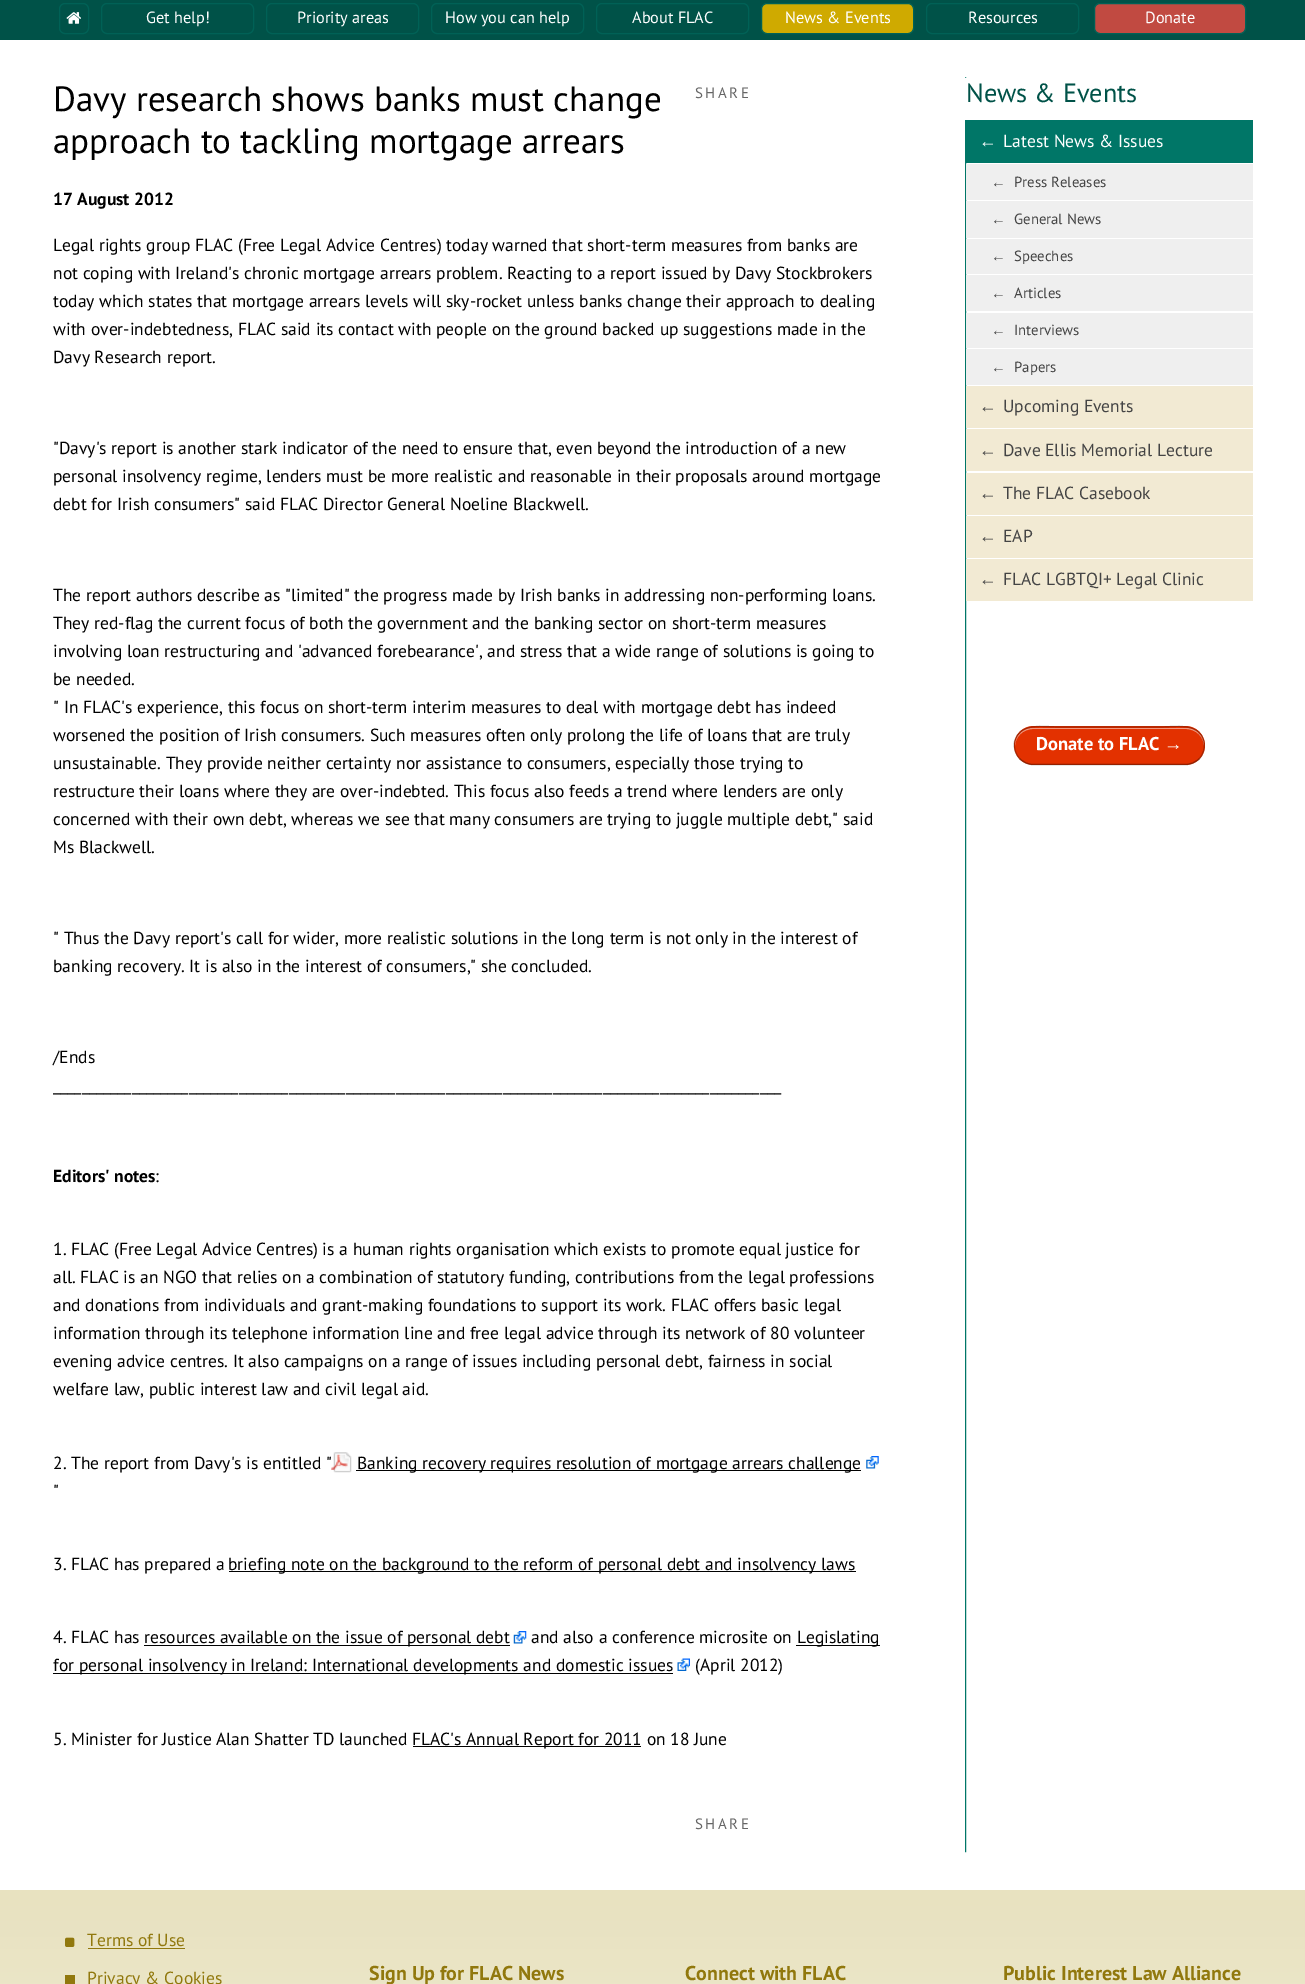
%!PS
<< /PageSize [1305 1984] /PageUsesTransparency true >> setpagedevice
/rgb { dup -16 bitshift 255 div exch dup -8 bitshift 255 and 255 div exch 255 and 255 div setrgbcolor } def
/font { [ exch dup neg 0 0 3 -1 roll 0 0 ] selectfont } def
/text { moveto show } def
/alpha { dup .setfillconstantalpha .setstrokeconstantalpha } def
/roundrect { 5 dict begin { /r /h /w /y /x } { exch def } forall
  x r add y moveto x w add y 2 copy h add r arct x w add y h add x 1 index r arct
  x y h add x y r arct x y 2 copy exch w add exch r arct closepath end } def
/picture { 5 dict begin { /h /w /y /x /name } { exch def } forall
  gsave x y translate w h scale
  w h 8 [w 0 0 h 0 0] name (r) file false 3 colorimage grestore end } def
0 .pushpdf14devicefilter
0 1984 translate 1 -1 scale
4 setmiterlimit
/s1 { /PTSans-Regular 16.25 font 16#FFFFFF rgb } def
/s2 { /PTSans-Regular 35 font 16#000000 rgb } def
/s3 { /PTSans-Bold 17.5 font 16#000000 rgb } def
/s4 { /PTSans-Regular 17.5 font 16#000000 rgb } def
/s5 { /PTSans-Regular 26.25 font 16#005248 rgb } def
/s6 { /LiberationSans-Regular 17.5 font 16#FFFFFF rgb } def
/s7 { /PTSans-Regular 17.5 font 16#FFFFFF rgb } def
/s8 { /LiberationSans-Regular 14.75 font 16#444444 rgb } def
/s9 { /PTSans-Regular 14.75 font 16#444444 rgb } def
/s10 { /LiberationSans-Regular 17.5 font 16#444444 rgb } def
/s11 { /PTSans-Regular 17.5 font 16#444444 rgb } def
/s12 { /PTSans-Bold 18.5 font 16#FFFFFF rgb } def
/s13 { /LiberationSans-Bold 18.5 font 16#FFFFFF rgb } def
/s14 { /PTSans-Regular 17.5 font 16#91780D rgb } def
/s15 { /PTSans-Bold 20 font 16#91780D rgb } def
16#FFFFFF rgb
0 0 1305 1984 rectfill
16#005248 rgb
0 0 1305 40 rectfill
16#006156 rgb
59.5 3.5 29 30 5.5 roundrect stroke
(pic1.raw) 66 12 15 12 picture
101.5 3.5 152 30 5.5 roundrect stroke
s1
(Get help!) 146 23 text
16#006156 rgb
266.5 3.5 152 30 5.5 roundrect stroke
s1
(Priority areas) 297 23 text
16#006156 rgb
431.5 3.5 152 30 5.5 roundrect stroke
s1
(How you can help) 445 23 text
16#006156 rgb
596.5 3.5 152 30 5.5 roundrect stroke
s1
(About FLAC) 632 23 text
16#CFAA00 rgb
761.5 3.5 152 30 5.5 roundrect gsave fill grestore
16#006156 rgb
stroke
s1
(News & Events) 785 23 text
16#006156 rgb
926.5 3.5 152 30 5.5 roundrect stroke
s1
(Resources) 968 23 text
16#C14A41 rgb
1094.5 3.5 151 30 5.5 roundrect gsave fill grestore
16#006156 rgb
stroke
s1
(Donate) 1145 23 text
(pic2.raw) 965 77 2 1776 picture
s2
(Davy research shows banks must change) 53 111 text
(approach to tackling mortgage arrears) 53 153 text
/PTSans-Regular 15 font
16#666666 rgb
695 98 moveto 2.5 0 (SHARE) ashow
s3
(17 August 2012) 53 205 text
s4
(Legal rights group FLAC \(Free Legal Advice Centres\) today warned that short-term measures from banks are) 53 251 text
(not coping with Ireland's chronic mortgage arrears problem. Reacting to a report issued by Davy Stockbrokers) 53 279 text
(today which states that mortgage arrears levels will sky-rocket unless banks change their approach to dealing) 53 307 text
(with over-indebtedness, FLAC said its contact with people on the ground backed up suggestions made in the) 53 335 text
(Davy Research report.) 53 363 text
("Davy's report is another stark indicator of the need to ensure that, even beyond the introduction of a new) 53 454 text
(personal insolvency regime, lenders must be more realistic and reasonable in their proposals around mortgage) 53 482 text
(debt for Irish consumers" said FLAC Director General Noeline Blackwell.) 53 510 text
(The report authors describe as "limited" the progress made by Irish banks in addressing non-performing loans.) 53 601 text
(They red-flag the current focus of both the government and the banking sector on short-term measures) 53 629 text
(involving loan restructuring and 'advanced forebearance', and stress that a wide range of solutions is going to) 53 657 text
(be needed.) 53 685 text
(" In FLAC's experience, this focus on short-term interim measures to deal with mortgage debt has indeed) 53 713 text
(worsened the position of Irish consumers. Such measures often only prolong the life of loans that are truly) 53 741 text
(unsustainable. They provide neither certainty nor assistance to consumers, especially those trying to) 53 769 text
(restructure their loans where they are over-indebted. This focus also feeds a trend where lenders are only) 53 797 text
(concerned with their own debt, whereas we see that many consumers are trying to juggle multiple debt," said) 53 825 text
(Ms Blackwell.) 53 853 text
(" Thus the Davy report's call for wider, more realistic solutions in the long term is not only in the interest of) 53 944 text
(banking recovery. It is also in the interest of consumers," she concluded.) 53 972 text
(/Ends) 53 1063 text
(______________________________________________________________________________________________________) 53 1091 text
s3
(Editors' notes) 53 1182 text
s4
(:) 155 1182 text
(1. FLAC \(Free Legal Advice Centres\) is a human rights organisation which exists to promote equal justice for) 53 1255 text
(all. FLAC is an NGO that relies on a combination of statutory funding, contributions from the legal professions) 53 1283 text
(and donations from individuals and grant-making foundations to support its work. FLAC offers basic legal) 53 1311 text
(information through its telephone information line and free legal advice through its network of 80 volunteer) 53 1339 text
(evening advice centres. It also campaigns on a range of issues including personal debt, fairness in social) 53 1367 text
(welfare law, public interest law and civil legal aid.) 53 1395 text
(2. The report from Davy's is entitled ") 53 1469 text
(pic3.raw) 331 1452 21 21 picture
356 1470 505 1 rectfill
(Banking recovery requires resolution of mortgage arrears challenge) 357 1469 text
(pic4.raw) 866 1456 13 13 picture
(") 53 1497 text
(3. FLAC has prepared a) 53 1570 text
229 1571 627 1 rectfill
(briefing note on the background to the reform of personal debt and insolvency laws) 228 1570 text
(4. FLAC has) 53 1643 text
144 1645 366 1 rectfill
(resources available on the issue of personal debt) 144 1643 text
(pic5.raw) 513 1631 14 13 picture
(and also a conference microsite on) 531 1643 text
796 1645 84 1 rectfill
(Legislating) 797 1643 text
53 1673 620 1 rectfill
(for personal insolvency in Ireland: International developments and domestic issues) 53 1671 text
(pic6.raw) 677 1658 13 13 picture
(\(April 2012\)) 695 1671 text
(5. Minister for Justice Alan Shatter TD launched) 53 1745 text
413 1746 228 1 rectfill
(FLAC's Annual Report for 2011 on 18 June) 412 1745 text
/PTSans-Regular 15 font
16#666666 rgb
695 1829 moveto 2.5 0 (SHARE) ashow
16#FFFFFF rgb
965 78 2 42 rectfill
16#007667 rgb
965 120 288 1 rectfill
s5
(News & Events) 966 102 text
16#007667 rgb
966 121 287 42 rectfill
s6
(←) 979 147 text
s7
(Latest News & Issues) 1003 147 text
16#EFEFEF rgb
966 164 287 36 rectfill
s8
(←) 991 187 text
s9
(Press Releases) 1014 187 text
16#EFEFEF rgb
966 201 287 37 rectfill
s8
(←) 991 224 text
s9
(General News) 1014 224 text
16#EFEFEF rgb
966 239 287 35 rectfill
s8
(←) 991 261 text
s9
(Speeches) 1014 261 text
16#EFEFEF rgb
966 275 287 36 rectfill
s8
(←) 991 298 text
s9
(Articles) 1014 298 text
16#EFEFEF rgb
966 313 287 35 rectfill
s8
(←) 991 335 text
s9
(Interviews) 1014 335 text
16#EFEFEF rgb
966 349 287 36 rectfill
s8
(←) 991 372 text
s9
(Papers) 1014 372 text
16#F2EAD3 rgb
966 386 287 42 rectfill
s10
(←) 979 412 text
s11
(Upcoming Events) 1003 412 text
16#F2EAD3 rgb
966 429 287 42 rectfill
s10
(←) 979 456 text
s11
(Dave Ellis Memorial Lecture) 1003 456 text
16#F2EAD3 rgb
966 473 287 42 rectfill
s10
(←) 979 499 text
s11
(The FLAC Casebook) 1003 499 text
16#F2EAD3 rgb
966 516 287 42 rectfill
s10
(←) 979 542 text
s11
(EAP) 1003 542 text
16#F2EAD3 rgb
966 559 287 42 rectfill
s10
(←) 979 585 text
s11
(FLAC LGBTQI+ Legal Clinic) 1003 585 text
16#E33100 rgb
1014 726 191 39 19.5 roundrect fill
16#F19880 rgb
1033 729 moveto 1186 729 lineto 1196 729 1204 737 1204 746 curveto 1204 736 1196 728 1186 728 curveto 1033 728 lineto 1023 728 1015 736 1015 746 curveto 1015 737 1023 729 1033 729 curveto closepath fill
0.35 alpha
16#000000 rgb
1.2 setlinewidth
1199 759 moveto 1195.5 762.5 1190.5 764.5 1185.5 764.5 curveto 1033 764.5 lineto 1028 764.5 1023.5 762.5 1020 759 curveto stroke
0.25 alpha
1020 759 moveto 1015.5 754.5 1013.5 748 1014.5 742 curveto 1019 721.5 1044.5 727 1058.5 727 curveto 1160 727 lineto 1174.5 727 1200 721.5 1204 742 curveto 1205 748 1203.5 754.5 1199 759 curveto stroke
1 alpha
s12
(Donate to FLAC) 1036 750 text
s13
(→) 1164 750 text
gsave 0 1890 moveto 1305 1890 lineto 1305 1984 lineto 0 1984 lineto closepath clip newpath
<< /ShadingType 2 /ColorSpace /DeviceRGB /Coords [653 1890 653 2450] /Extend [true true] /Function << /FunctionType 3 /Domain [0 1] /Functions [<< /FunctionType 2 /Domain [0 1] /C0 [0.91 0.886 0.753] /C1 [0.918 0.894 0.769] /N 1 >> << /FunctionType 2 /Domain [0 1] /C0 [0.918 0.894 0.769] /C1 [0.973 0.961 0.89] /N 1 >> << /FunctionType 2 /Domain [0 1] /C0 [0.973 0.961 0.89] /C1 [0.976 0.965 0.898] /N 1 >>] /Bounds [0.12 0.61] /Encode [0 1 0 1 0 1] >> >> shfill grestore
(pic7.raw) 65 1937 10 10 picture
s14
(Terms of Use) 87 1946 text
88 1948 97 1 rectfill
65 1975 10 9 rectfill
(Privacy & Cookies) 87 1984 text
s15
(Sign Up for FLAC News) 369 1980 text
(Connect with FLAC) 685 1980 text
(Public Interest Law Alliance) 1003 1980 text
.poppdf14devicefilter showpage
